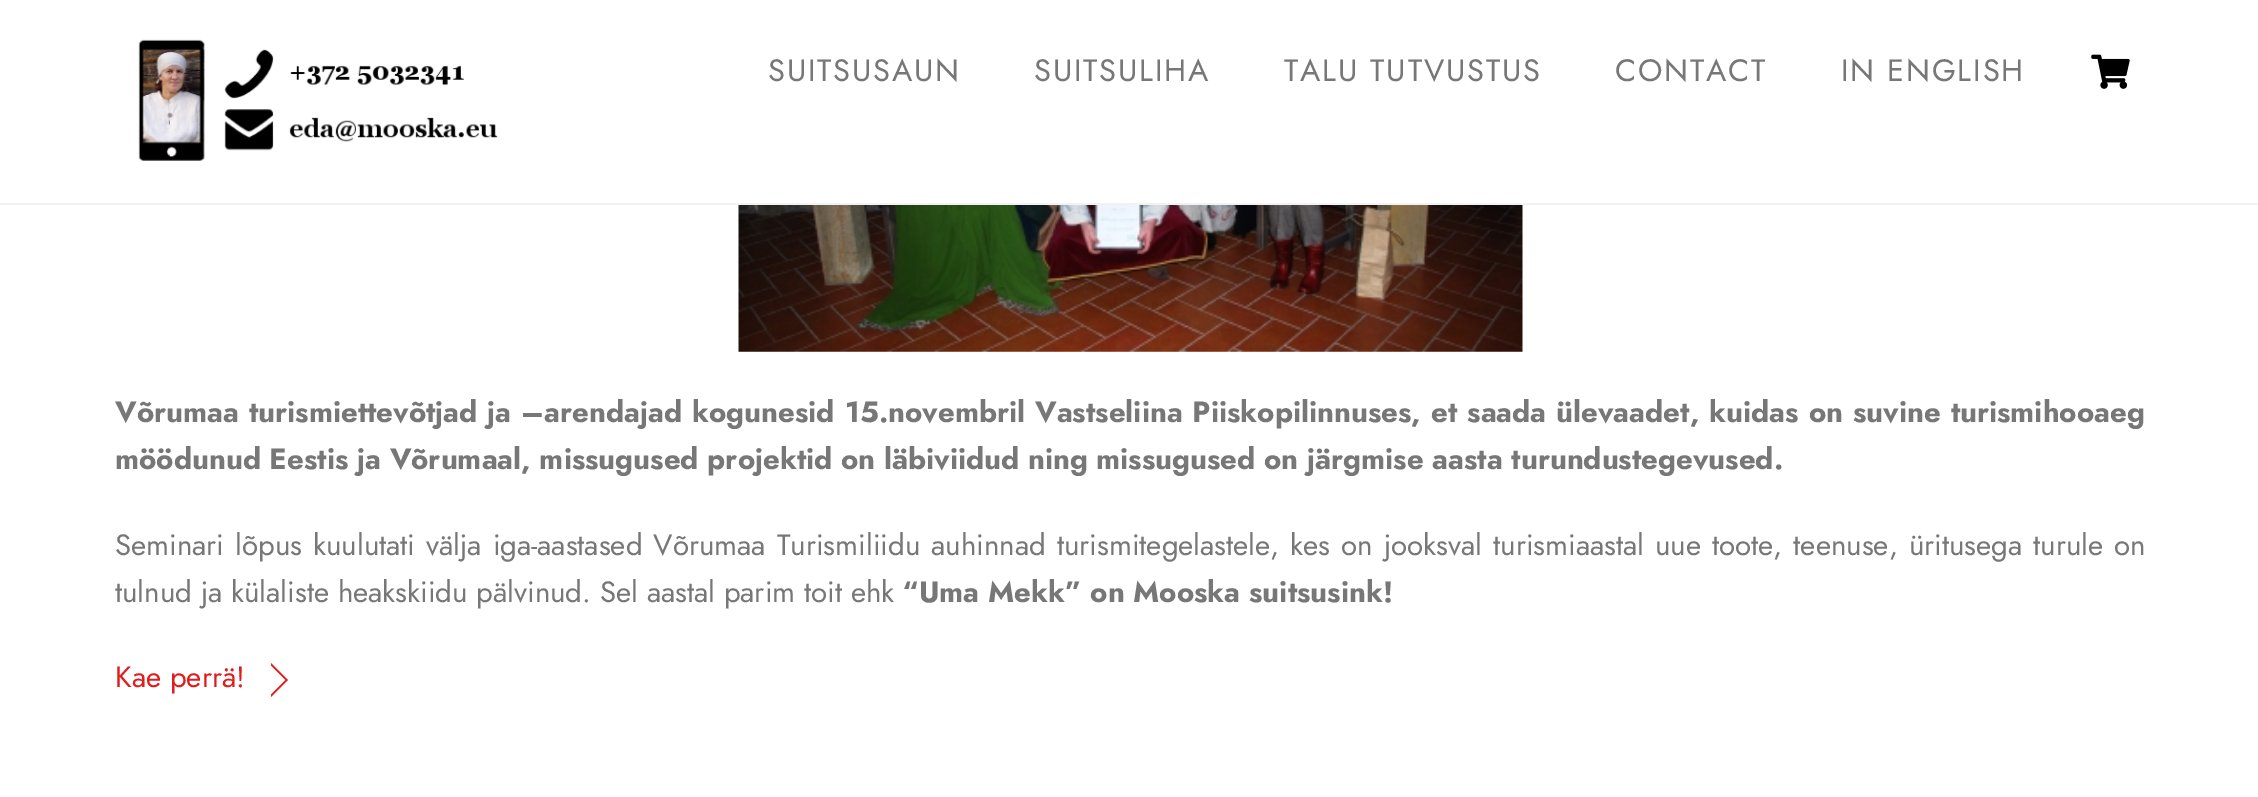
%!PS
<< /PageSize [2258 797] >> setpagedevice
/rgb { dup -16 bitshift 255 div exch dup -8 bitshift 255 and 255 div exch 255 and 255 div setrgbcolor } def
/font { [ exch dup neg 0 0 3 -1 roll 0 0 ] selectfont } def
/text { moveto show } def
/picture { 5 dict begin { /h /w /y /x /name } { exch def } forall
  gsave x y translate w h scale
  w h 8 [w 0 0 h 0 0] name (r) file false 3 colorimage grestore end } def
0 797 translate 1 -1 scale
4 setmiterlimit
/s1 { /Jost-Regular 29.4 font 16#777777 rgb } def
/s2 { /Jost-Bold 29.4 font 16#777777 rgb } def
/s3 { /Jost-Regular 29.4 font 16#E11C1C rgb } def
16#FFFFFF rgb
0 0 2258 797 rectfill
16#F2F2F2 rgb
0 203 2258 2 rectfill
(pic1.raw) 138 39 360 122 picture
/Jost-Regular 30.9 font
16#777777 rgb
768 81 moveto 1.8 0 (SUITSUSAUN) ashow
1034 81 moveto 1.8 0 (SUITSULIHA) ashow
1284 81 moveto 1.8 0 (TALU TUTVUSTUS) ashow
1615 81 moveto 1.8 0 (CONTACT) ashow
1841 81 moveto 1.8 0 (IN ENGLISH) ashow
(pic2.raw) 2091 54 39 35 picture
(pic3.raw) 738 205 785 147 picture
/Jost-Bold 29.4 font
115 422 moveto 1.25 0 32 (Võrumaa turismiettevõtjad ja –arendajad kogunesid 15.novembril Vastseliina Piiskopilinnuses, et saada ülevaadet, kuidas on suvine turismihooaeg) widthshow
115 469 moveto -0.1 0 32 (möödunud Eestis ja Võrumaal, missugused projektid on läbiviidud ning missugused on järgmise aasta turundustegevused.) widthshow
/Jost-Regular 29.4 font
115 555 moveto 2.25 0 32 (Seminari lõpus kuulutati välja iga-aastased Võrumaa Turismiliidu auhinnad turismitegelastele, kes on jooksval turismiaastal uue toote, teenuse, üritusega turule on) widthshow
(tulnud ja külaliste heakskiidu pälvinud. Sel aastal parim toit ehk) 115 602 text
s2
(“Uma Mekk” on Mooska suitsusink!) 902 602 text
s3
(Kae perrä!) 115 687 text
271 663 moveto 288 680 lineto 285.5 680 lineto 271 665.5 lineto closepath 288 680 moveto 271 697 lineto 271 694.5 lineto 285.5 680 lineto closepath fill
showpage
